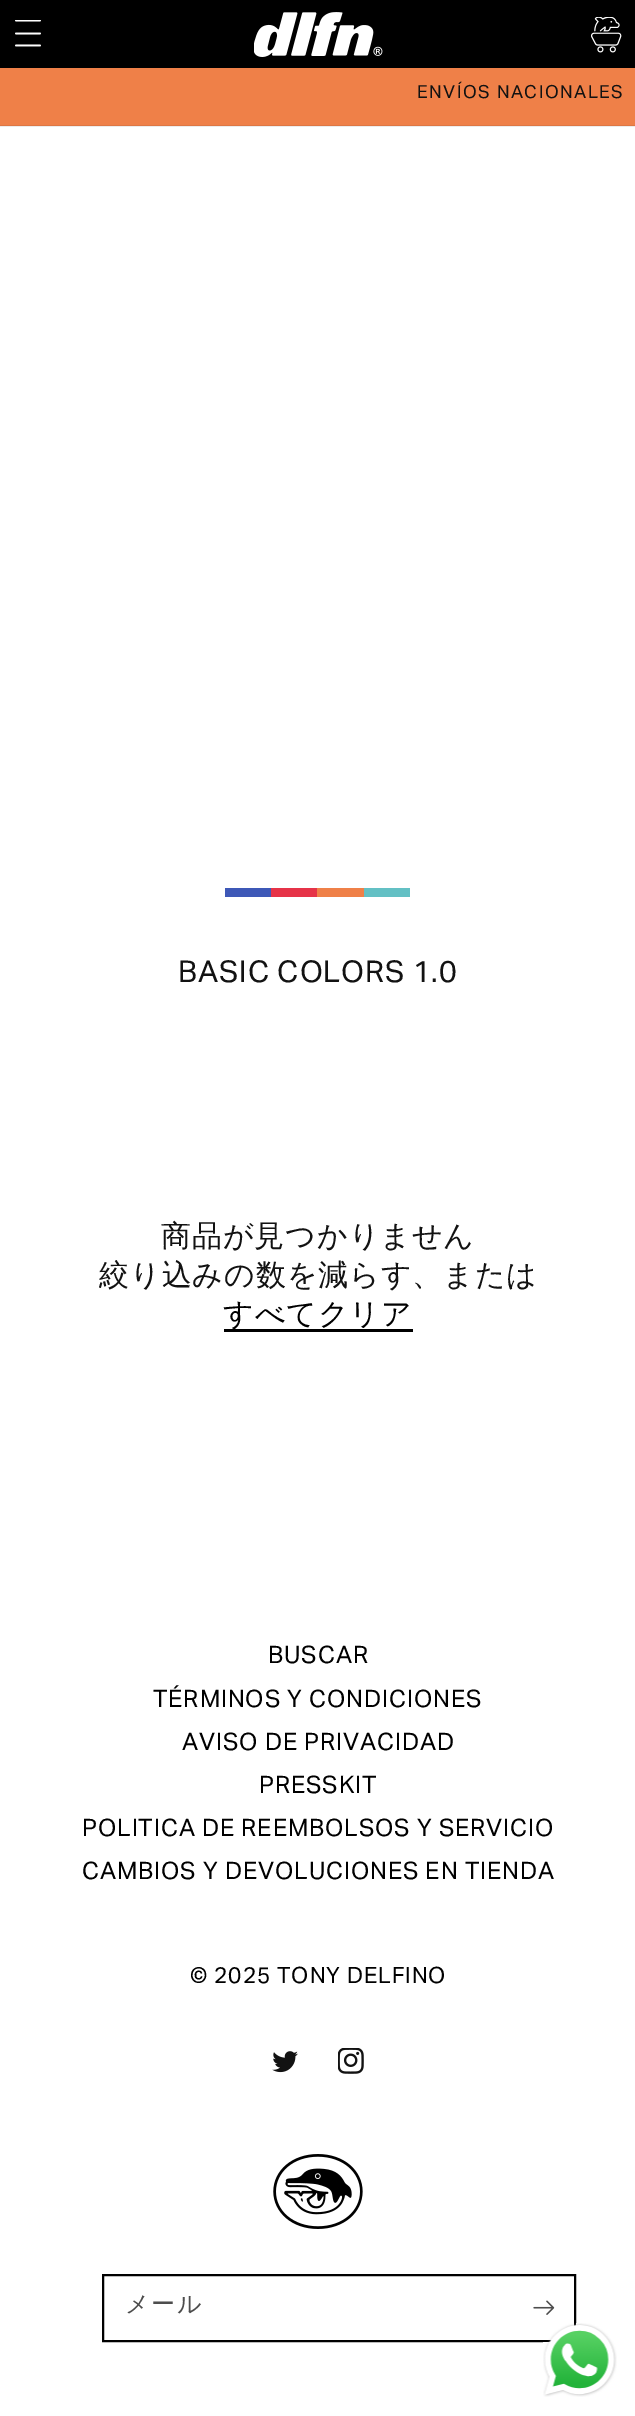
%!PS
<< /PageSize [635 2416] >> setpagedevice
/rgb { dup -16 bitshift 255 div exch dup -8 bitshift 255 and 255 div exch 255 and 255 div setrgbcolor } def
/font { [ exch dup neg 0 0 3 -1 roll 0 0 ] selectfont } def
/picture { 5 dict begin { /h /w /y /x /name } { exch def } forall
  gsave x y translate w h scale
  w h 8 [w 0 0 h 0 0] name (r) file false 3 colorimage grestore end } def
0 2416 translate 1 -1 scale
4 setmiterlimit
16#FFFFFF rgb
0 0 635 2416 rectfill
16#ECECEC rgb
0 126 635 1 rectfill
16#000000 rgb
0 0 635 68 rectfill
(pic1.raw) 15 20 26 27 picture
(pic2.raw) 254 12 129 45 picture
(pic3.raw) 591 17 31 36 picture
16#EF8048 rgb
0 68 635 57 rectfill
16#DD7744 rgb
0 125 635 1 rectfill
/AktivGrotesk-Regular 18 font
16#121212 rgb
417 98 moveto 1.5 0 (ENVÍOS NACIONALES) ashow
16#3E58B7 rgb
225 888 46 9 rectfill
16#E63348 rgb
271 888 46 9 rectfill
16#EF8048 rgb
317 888 47 9 rectfill
16#63C0C4 rgb
364 888 46 9 rectfill
/AktivGrotesk-Regular 30 font
16#121212 rgb
178 982 moveto 0.9 0 (BASIC COLORS 1.0) ashow
/WenQuanYiZenHei-Medium 30 font
161 1246 moveto 0.9 0 (商品が見つかりません) ashow
99 1285 moveto 0.9 0 (絞り込みの数を減らす、または) ashow
16#000000 rgb
224 1329 189 3 rectfill
223 1324 moveto 0.9 0 (すべてクリア) ashow
/AktivGrotesk-Regular 24 font
268 1663 moveto 0.9 0 (BUSCAR) ashow
153 1707 moveto 0.9 0 (TÉRMINOS Y CONDICIONES) ashow
182 1750 moveto 0.9 0 (AVISO DE PRIVACIDAD) ashow
259 1793 moveto 0.9 0 (PRESSKIT) ashow
82 1836 moveto 0.9 0 (POLITICA DE REEMBOLSOS Y SERVICIO) ashow
82 1879 moveto 0.9 0 (CAMBIOS Y DEVOLUCIONES EN TIENDA) ashow
/AktivGrotesk-Regular 22.5 font
190 1983 moveto 0.9 0 (© 2025 TONY DELFINO) ashow
(pic4.raw) 272 2051 26 22 picture
(pic5.raw) 338 2048 26 26 picture
(pic6.raw) 273 2154 90 75 picture
2 setlinewidth
103 2275 472 66 rectstroke
/WenQuanYiZenHei-Medium 24 font
16#4D4D4D rgb
125 2312 moveto 1.5 0 (メール) ashow
(pic7.raw) 533 2300 22 15 picture
(pic8.raw) 543 2323 74 74 picture
showpage
